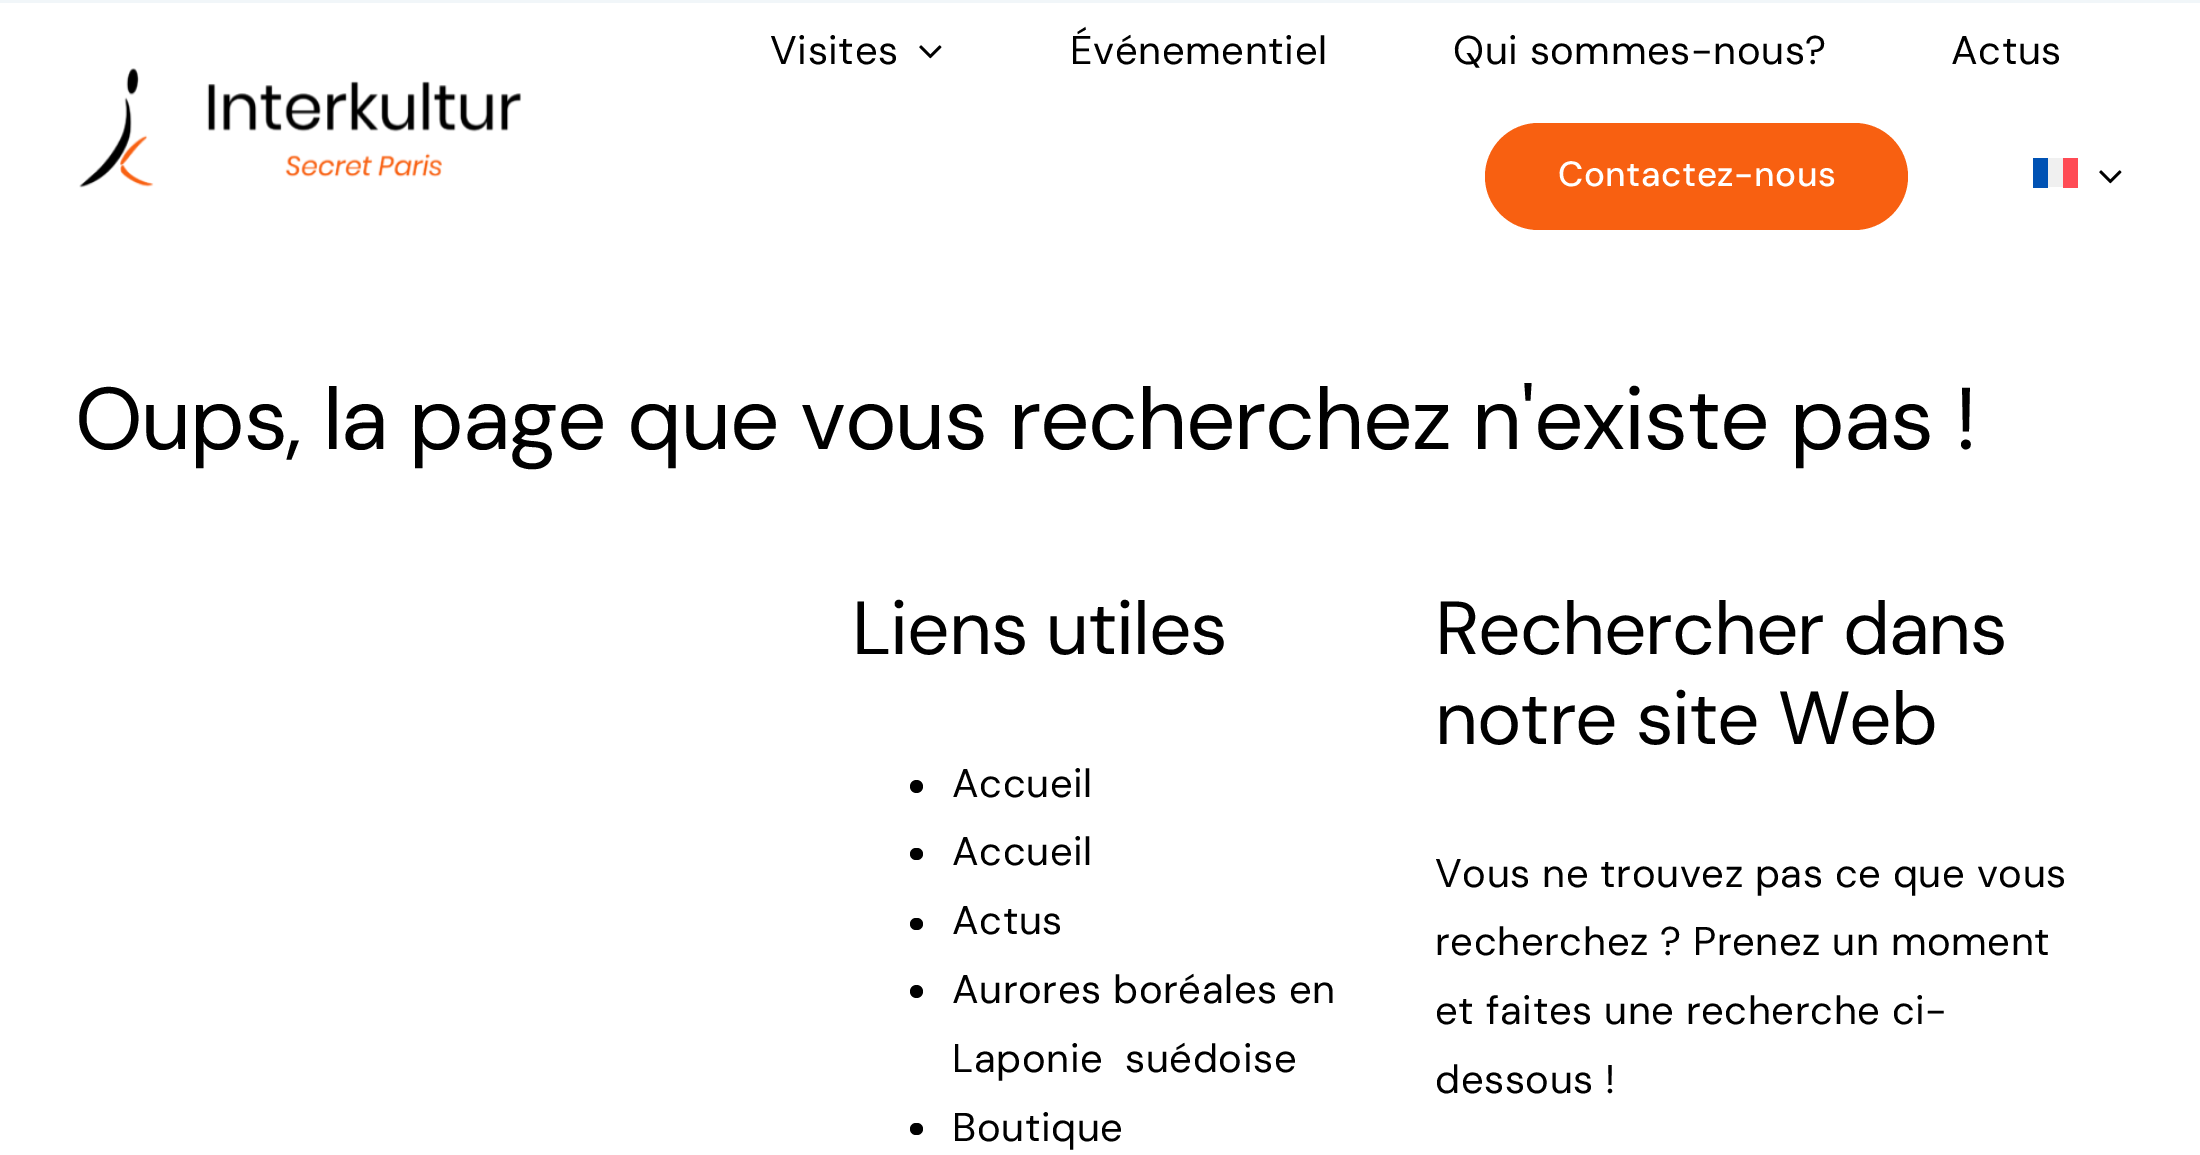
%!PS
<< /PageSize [2200 1155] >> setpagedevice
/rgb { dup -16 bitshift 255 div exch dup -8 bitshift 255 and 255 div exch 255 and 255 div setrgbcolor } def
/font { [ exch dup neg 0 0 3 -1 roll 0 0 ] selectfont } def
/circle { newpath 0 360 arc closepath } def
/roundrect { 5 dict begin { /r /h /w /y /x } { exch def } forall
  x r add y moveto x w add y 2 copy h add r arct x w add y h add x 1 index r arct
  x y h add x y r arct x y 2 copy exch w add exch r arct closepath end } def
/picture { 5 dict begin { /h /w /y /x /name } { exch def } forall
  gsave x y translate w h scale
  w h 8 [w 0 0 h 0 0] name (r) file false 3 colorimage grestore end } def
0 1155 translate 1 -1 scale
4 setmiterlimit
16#FFFFFF rgb
0 0 2200 1155 rectfill
16#F1F6F9 rgb
0 0 2200 3 rectfill
(pic1.raw) 79 68 443 120 picture
/DMSans-Regular 40 font
16#000000 rgb
770 64 moveto 0.6 0 (Visites) ashow
(pic2.raw) 919 45 23 14 picture
1070 64 moveto 0.6 0 (Événementiel) ashow
1453 64 moveto 0.6 0 (Qui sommes-nous?) ashow
1951 64 moveto 0.6 0 (Actus) ashow
16#F86011 rgb
1485 123 423 107 53.5 roundrect fill
/DMSans-Medium 35 font
16#FFFFFF rgb
1558 186 moveto 0.5 0 (Contactez-nous) ashow
16#0052B4 rgb
2033 158 15 30 rectfill
16#F0F0F0 rgb
2048 158 15 29 rectfill
16#FF4B55 rgb
2063 158 15 30 rectfill
(pic2.raw) 2099 170 23 14 picture
/DMSans-Regular 87.5 font
16#000000 rgb
75 449 moveto -1.3 0 (Oups, la page que vous recherchez n'existe pas !) ashow
/DMSans-Regular 75 font
852 654 moveto -1.1 0 (Liens utiles) ashow
916.5 786.5 6.5 circle fill
/DMSans-Regular 40 font
952 797 moveto 0.6 0 (Accueil) ashow
910 848 13 12 6 roundrect fill
952 865 moveto 0.6 0 (Accueil) ashow
910 918 13 12 6 roundrect fill
952 934 moveto 0.6 0 (Actus) ashow
916.5 991.5 6.5 circle fill
952 1003 moveto 0.6 0 (Aurores boréales en) ashow
952 1072 moveto 11 0 32 0.6 0 (Laponie suédoise) awidthshow
910 1123 13 12 6 roundrect fill
952 1141 moveto 0.6 0 (Boutique) ashow
/DMSans-Regular 75 font
1435 654 moveto -1.1 0 (Rechercher dans) ashow
1435 744 moveto -1.1 0 (notre site Web) ashow
/DMSans-Regular 40 font
1435 887 moveto 0.6 0 (Vous ne trouvez pas ce que vous) ashow
1435 955 moveto 0.6 0 (recherchez ? Prenez un moment) ashow
1435 1024 moveto 0.6 0 (et faites une recherche ci-) ashow
1435 1093 moveto 0.6 0 (dessous !) ashow
showpage
